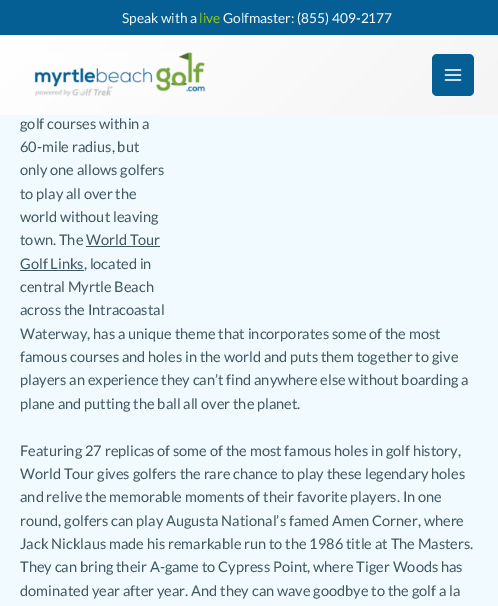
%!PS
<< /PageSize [498 606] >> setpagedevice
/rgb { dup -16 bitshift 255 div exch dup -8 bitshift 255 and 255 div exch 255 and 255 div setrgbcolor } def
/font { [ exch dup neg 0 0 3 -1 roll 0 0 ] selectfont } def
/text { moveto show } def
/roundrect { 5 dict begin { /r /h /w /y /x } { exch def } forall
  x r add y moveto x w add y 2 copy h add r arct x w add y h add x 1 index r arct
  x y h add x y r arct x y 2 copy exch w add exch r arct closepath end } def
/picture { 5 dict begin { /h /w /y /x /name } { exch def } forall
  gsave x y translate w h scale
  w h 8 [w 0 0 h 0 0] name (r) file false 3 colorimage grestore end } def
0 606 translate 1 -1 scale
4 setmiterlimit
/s1 { /Lato-Regular 13.75 font 16#F0FAFF rgb } def
/s2 { /Lato-Regular 13.75 font 16#99CC00 rgb } def
/s3 { /Lato-Regular 13.75 font 16#FFFFFF rgb } def
/s4 { /Lato-Regular 14.6 font 16#415762 rgb } def
16#F0FAFF rgb
0 0 498 606 rectfill
16#055F95 rgb
0 0 498 35 rectfill
s1
(Speak with a) 122 23 text
s2
(live) 199 23 text
s1
(Golfmaster:) 223 23 text
s3
(\(855\) 409-2177) 297 23 text
gsave 0 35 moveto 498 35 lineto 498 115 lineto 0 115 lineto closepath clip newpath
<< /ShadingType 2 /ColorSpace /DeviceRGB /Coords [105 -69 394 220] /Extend [true true] /Function << /FunctionType 2 /Domain [0 1] /C0 [1 1 1] /C1 [0.961 0.961 0.961] /N 1 >> >> shfill grestore
(pic1.raw) 34 52 172 45 picture
16#055F95 rgb
432 54 42 42 5 roundrect fill
(pic2.raw) 444 69 18 12 picture
s4
(golf courses within a) 20 129 text
(60-mile radius, but) 20 152 text
(only one allows golfers) 20 175 text
(to play all over the) 20 199 text
(world without leaving) 20 222 text
(town. The World Tour) 20 245 text
20 270 64 1 rectfill
(Golf Links, located in) 20 269 text
86 246 74 1 rectfill
(central Myrtle Beach) 20 292 text
(across the Intracoastal) 20 315 text
(Waterway, has a unique theme that incorporates some of the most) 20 339 text
(famous courses and holes in the world and puts them together to give) 20 362 text
(players an experience they can’t find anywhere else without boarding a) 20 385 text
(plane and putting the ball all over the planet.) 20 409 text
(Featuring 27 replicas of some of the most famous holes in golf history,) 20 456 text
(World Tour gives golfers the rare chance to play these legendary holes) 20 479 text
(and relive the memorable moments of their favorite players. In one) 20 502 text
(round, golfers can play Augusta National’s famed Amen Corner, where) 20 526 text
(Jack Nicklaus made his remarkable run to the 1986 title at The Masters.) 20 549 text
(They can bring their A-game to Cypress Point, where Tiger Woods has) 20 572 text
(dominated year after year. And they can wave goodbye to the golf a la) 20 596 text
showpage
